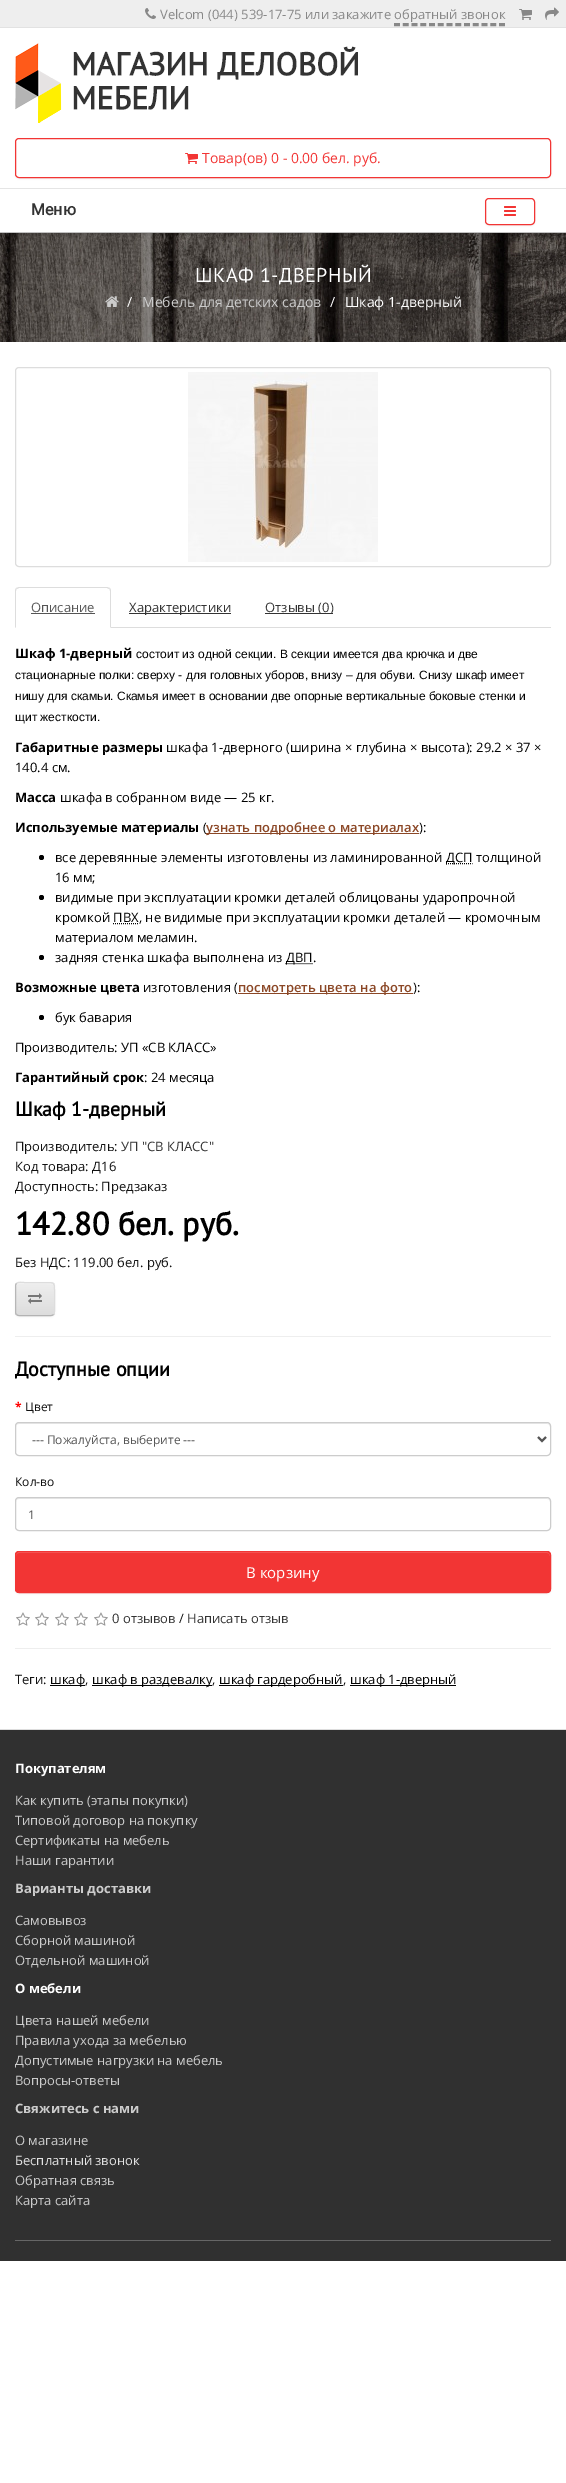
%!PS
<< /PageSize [566 2483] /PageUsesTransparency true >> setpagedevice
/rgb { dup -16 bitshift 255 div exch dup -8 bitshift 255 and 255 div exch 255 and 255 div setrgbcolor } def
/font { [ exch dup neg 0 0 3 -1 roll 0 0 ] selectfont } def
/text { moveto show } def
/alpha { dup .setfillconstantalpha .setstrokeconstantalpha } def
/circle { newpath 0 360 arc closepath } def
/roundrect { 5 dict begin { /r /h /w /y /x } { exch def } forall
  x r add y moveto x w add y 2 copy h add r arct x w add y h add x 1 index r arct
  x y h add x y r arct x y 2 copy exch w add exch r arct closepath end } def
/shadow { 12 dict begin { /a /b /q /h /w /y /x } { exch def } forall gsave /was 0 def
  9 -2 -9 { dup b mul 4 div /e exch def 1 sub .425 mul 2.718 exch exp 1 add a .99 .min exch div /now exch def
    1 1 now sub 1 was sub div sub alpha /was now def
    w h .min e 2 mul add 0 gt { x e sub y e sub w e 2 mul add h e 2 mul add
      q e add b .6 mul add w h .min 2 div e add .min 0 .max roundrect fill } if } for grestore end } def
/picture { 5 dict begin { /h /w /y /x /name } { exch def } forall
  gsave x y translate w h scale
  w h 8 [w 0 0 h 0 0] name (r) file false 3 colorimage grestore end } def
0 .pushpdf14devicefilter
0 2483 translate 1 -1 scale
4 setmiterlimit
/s1 { /OpenSans-Regular 13 font 16#888888 rgb } def
/s2 { /OpenSans-Regular 14 font 16#F23534 rgb } def
/s3 { /Roboto-Bold 16 font 16#333333 rgb } def
/s4 { /OpenSans-Regular 14 font 16#FFFFFF rgb } def
/s5 { /OpenSans-Regular 14 font 16#CCCCCC rgb } def
/s6 { /OpenSans-Regular 13 font 16#555555 rgb } def
/s7 { /OpenSans-Regular 13 font 16#333333 rgb } def
/s8 { /OpenSans-Bold 13 font 16#000000 rgb } def
/s9 { /LiberationSans-Regular 12 font 16#000000 rgb } def
/s10 { /OpenSans-Regular 13 font 16#000000 rgb } def
/s11 { /OpenSans-SemiBold 13 font 16#8B4726 rgb } def
/s12 { /PTSans-Bold 20 font 16#000000 rgb } def
/s13 { /OpenSans-Regular 13 font 16#111111 rgb } def
/s14 { /PTSans-Bold 32 font 16#000000 rgb } def
/s15 { /OpenSans-Bold 12 font 16#FF0000 rgb } def
/s16 { /OpenSans-Regular 12 font 16#111111 rgb } def
/s17 { /OpenSans-Regular 12 font 16#555555 rgb } def
/s18 { /OpenSans-Regular 15 font 16#FFFFFF rgb } def
/s19 { /OpenSans-Bold 13 font 16#FFFFFF rgb } def
/s20 { /OpenSans-Regular 13 font 16#CCCCCC rgb } def
/s21 { /OpenSans-Bold 13 font 16#CCCCCC rgb } def
/s22 { /OpenSans-Regular 13 font 16#E2E2E2 rgb } def
16#FFFFFF rgb
0 0 566 2483 rectfill
16#EEEEEE rgb
0 0 566 27 rectfill
16#E2E2E2 rgb
0 27 566 1 rectfill
(pic1.raw) 145 8 11 11 picture
s1
(Velcom \(044\) 539-17-75 или закажите обратный звонок) 160 19 text
3 setlinewidth
[6 2.75] 0 setdash
394 24.5 moveto 505 24.5 lineto stroke
(pic2.raw) 519 9 13 11 picture
(pic3.raw) 545 7 14 13 picture
(pic4.raw) 15 43 343 80 picture
16#000000 rgb
15 139 536 40 4 1 0.05 shadow
16#FFFFFF rgb
15.5 138.5 535 39 3.5 roundrect gsave fill grestore
16#F23534 rgb
1 setlinewidth
[] 0 setdash
stroke
(pic5.raw) 185 153 13 11 picture
s2
(Товар\(ов\) 0 - 0.00 бел. руб.) 202 163 text
16#E5E5E5 rgb
0 188 566 1 rectfill
s3
(Меню) 31 215 text
16#000000 rgb
485 199 50 27 4 1 0.05 shadow
16#FFFFFF rgb
485.5 198.5 49 26 3.5 roundrect gsave fill grestore
16#F23534 rgb
stroke
(pic6.raw) 504 206 12 10 picture
(pic8.raw) 0 233 566 109 picture
(pic7.raw) 0 233 566 3 picture
16#C1C1C1 rgb
0 232 566 1 rectfill
/PTSans-Regular 20 font
16#FFFFFF rgb
195 282 moveto 0.5 0 (ШКАФ 1-ДВЕРНЫЙ) ashow
(pic9.raw) 105 296 14 11 picture
s4
(/) 127 307 text
s5
(Мебель для детских садов) 142 307 text
s4
(/) 330 307 text
(Шкаф 1-дверный) 345 307 text
16#DDDDDD rgb
15.5 367.5 535 199 3.5 roundrect stroke
(pic10.raw) 188 372 190 190 picture
111 627 440 1 rectfill
19 587 moveto 16 588 lineto 17 589 lineto 19 588 lineto 107 588 lineto 109 589 lineto 110 588 lineto 107 587 lineto closepath fill
111 628 moveto 111 591 lineto 111 590 110.5 589 110 588 curveto 109 589 lineto 110 589 110 590 110 591 curveto 110 627 lineto closepath fill
15 628 moveto 16 627 lineto 16 591 lineto 16 590 16 589 17 589 curveto 16 588 lineto 15.5 589 15 590 15 591 curveto closepath fill
s6
(Описание) 31 612 text
31 613 64 1 rectfill
16#333333 rgb
129 613 102 1 rectfill
(Характеристики) 129 612 text
265 613 68 1 rectfill
(Отзывы \(0\)) 265 612 text
s8
(Шкаф 1-дверный) 15 658 text
s9
(состоит из одной секции. В секции имеется два крючка и две) 136 658 text
(стационарные полки: сверху - для головных уборов, внизу – для обуви. Снизу шкаф имеет) 15 679 text
(нишу для скамьи. Скамья имеет в основании две опорные вертикальные боковые стенки и) 15 700 text
(щит жесткости.) 15 721 text
s8
(Габаритные размеры) 15 752 text
s10
(шкафа 1-дверного \(ширина × глубина × высота\): 29.2 × 37 ×) 166 752 text
(140.4 см.) 15 772 text
s8
(Масса) 15 802 text
s10
(шкафа в собранном виде — 25 кг.) 60 802 text
s8
(Используемые материалы) 15 832 text
s10
(\() 203 832 text
16#8B4726 rgb
206 833 213 1 rectfill
s11
(узнать подробнее о материалах) 206 832 text
s10
(\):) 419 832 text
41.5 857.5 2.5 circle fill
(все деревянные элементы изготовлены из ламинированной) 55 862 text
[1 1] 0 setdash
446 863.5 moveto 472.5 863.5 lineto stroke
(ДСП толщиной) 446 862 text
(16 мм;) 55 882 text
41.5 897.5 2.5 circle fill
(видимые при эксплуатации кромки деталей облицованы ударопрочной) 55 902 text
(кромкой ПВХ, не видимые при эксплуатации кромки деталей — кромочным) 55 922 text
113 923.5 moveto 138.5 923.5 lineto stroke
(материалом меламин.) 55 942 text
41.5 957.5 2.5 circle fill
(задняя стенка шкафа выполнена из) 55 962 text
285.5 963.5 moveto 312.5 963.5 lineto stroke
(ДВП.) 286 962 text
s8
(Возможные цвета) 15 992 text
s10
(изготовления \() 143 992 text
16#8B4726 rgb
238 993 175 1 rectfill
s11
(посмотреть цвета на фото) 238 992 text
s10
(\):) 413 992 text
41.5 1017.5 2.5 circle fill
(бук бавария) 55 1022 text
(Производитель: УП «СВ КЛАСС») 15 1052 text
s8
(Гарантийный срок) 15 1082 text
s10
(: 24 месяца) 144 1082 text
s12
(Шкаф 1-дверный) 15 1116 text
s13
(Производитель:) 15 1151 text
s7
(УП "СВ КЛАСС") 121 1151 text
s13
(Код товара: Д16) 15 1171 text
(Доступность: Предзаказ) 15 1191 text
s14
(142.80 бел. руб.) 15 1235 text
s13
(Без НДС: 119.00 бел. руб.) 15 1267 text
16#000000 rgb
15 1283 40 34 4 1 0.05 shadow
16#E7E7E7 rgb
15 1282 40 34 4 roundrect fill
gsave
15 1282 40 34 4 roundrect clip newpath
gsave 15 1283 moveto 55 1283 lineto 55 1315 lineto 15 1315 lineto closepath clip newpath
<< /ShadingType 2 /ColorSpace /DeviceRGB /Coords [35 1283 35 1315] /Extend [true true] /Function << /FunctionType 2 /Domain [0 1] /C0 [0.933 0.933 0.933] /C1 [0.867 0.867 0.867] /N 1 >> >> shfill grestore
grestore
16#F1F1F1 rgb
19 1284 moveto 46 1284 lineto 51.5 1284 53.5 1284.5 54 1286.5 curveto 54 1281.5 49.5 1283 45.5 1283 curveto 24.5 1283 lineto 21 1283 16 1282 16 1286.5 curveto 16.5 1285 17.5 1284 19 1284 curveto closepath fill
16#DDDDDD rgb
[] 0 setdash
16.5 1283.5 moveto 18.5 1281.5 22.5 1282.5 24.5 1282.5 curveto 45.5 1282.5 lineto 54 1282.5 54.5 1282 54.5 1290.5 curveto 54.5 1307.5 lineto 54.5 1309.5 55 1313 53.5 1314.5 curveto stroke
16#B3B3B3 rgb
53.5 1314.5 moveto 53 1315 52 1315.5 51 1315.5 curveto 19 1315.5 lineto 18 1315.5 17 1315 16.5 1314.5 curveto stroke
16#B7B7B7 rgb
16.5 1314.5 moveto 16 1314 15.5 1313 15.5 1312 curveto 15.5 1286 lineto 15.5 1285 16 1284 16.5 1283.5 curveto stroke
(pic11.raw) 28 1293 14 11 picture
16#EEEEEE rgb
15 1336 536 1 rectfill
s12
(Доступные опции) 15 1376 text
s15
(*) 15 1411 text
s16
(Цвет) 25 1411 text
16#ECECEC rgb
19 1424 moveto 547 1424 lineto 549 1424 550 1425 550 1427 curveto 549 1424 lineto 547 1423 lineto 19 1423 lineto 17 1423 16 1425 16 1427 curveto 16 1425 17 1424 19 1424 curveto closepath fill
16#CCCCCC rgb
15.5 1422.5 535 33 3.5 roundrect stroke
16#555555 rgb
2 setlinewidth
538 1437 moveto 542 1441 lineto 546 1437 lineto stroke
(--- Пожалуйста, выберите ---) 32 1444 text
s16
(Кол-во) 15 1486 text
16#ECECEC rgb
19 1499 moveto 547 1499 lineto 549 1499 550 1500 550 1502 curveto 549 1499 lineto 547 1498 lineto 19 1498 lineto 17 1498 16 1500 16 1502 curveto 16 1500 17 1499 19 1499 curveto closepath fill
16#CCCCCC rgb
1 setlinewidth
15.5 1497.5 535 33 3.5 roundrect stroke
s17
(1) 28 1519 text
16#000000 rgb
15 1552 536 42 4 1 0.05 shadow
16#F23534 rgb
15 1551 536 42 4 roundrect fill
16#F55D5D rgb
19 1553 moveto 547 1553 lineto 549 1553 550 1554 550 1556 curveto 549 1553 lineto 547 1552 lineto 19 1552 lineto 17 1552 16 1554 16 1556 curveto 16 1554 17 1553 19 1553 curveto closepath fill
16#F23534 rgb
15.5 1551.5 535 41 3.5 roundrect stroke
s18
(В корзину) 246 1578 text
(pic12.raw) 16 1612 14 14 picture
(pic12.raw) 35 1612 14 14 picture
(pic12.raw) 55 1612 14 14 picture
(pic12.raw) 74 1612 14 14 picture
(pic12.raw) 94 1612 14 14 picture
s7
(0 отзывов) 112 1623 text
s13
(/) 179 1623 text
s7
(Написать отзыв) 187 1623 text
16#EEEEEE rgb
15 1648 536 1 rectfill
s13
(Теги:) 15 1684 text
16#000000 rgb
50 1685 35 1 rectfill
(шкаф) 50 1684 text
s13
(,) 85 1684 text
16#000000 rgb
92 1685 120 1 rectfill
(шкаф в раздевалку) 92 1684 text
s13
(,) 212 1684 text
16#000000 rgb
219 1685 124 1 rectfill
(шкаф гардеробный) 219 1684 text
s13
(,) 343 1684 text
16#000000 rgb
350 1685 106 1 rectfill
(шкаф 1-дверный) 350 1684 text
16#303030 rgb
0 1730 566 531 rectfill
16#DDDDDD rgb
0 1729 566 1 rectfill
s19
(Покупателям) 15 1773 text
s20
(Как купить \(этапы покупки\)) 15 1805 text
(Типовой договор на покупку) 15 1825 text
(Сертификаты на мебель) 15 1845 text
(Наши гарантии) 15 1865 text
s21
(Варианты доставки) 15 1893 text
s20
(Самовывоз) 15 1925 text
(Сборной машиной) 15 1945 text
(Отдельной машиной) 15 1965 text
s19
(О мебели) 15 1993 text
s20
(Цвета нашей мебели) 15 2025 text
(Правила ухода за мебелью) 15 2045 text
(Допустимые нагрузки на мебель) 15 2065 text
(Вопросы-ответы) 15 2085 text
s21
(Свяжитесь с нами) 15 2113 text
s20
(О магазине) 15 2145 text
s22
(Бесплатный звонок) 15 2165 text
s20
(Обратная связь) 15 2185 text
(Карта сайта) 15 2205 text
16#666666 rgb
15 2240 536 1 rectfill
.poppdf14devicefilter showpage
